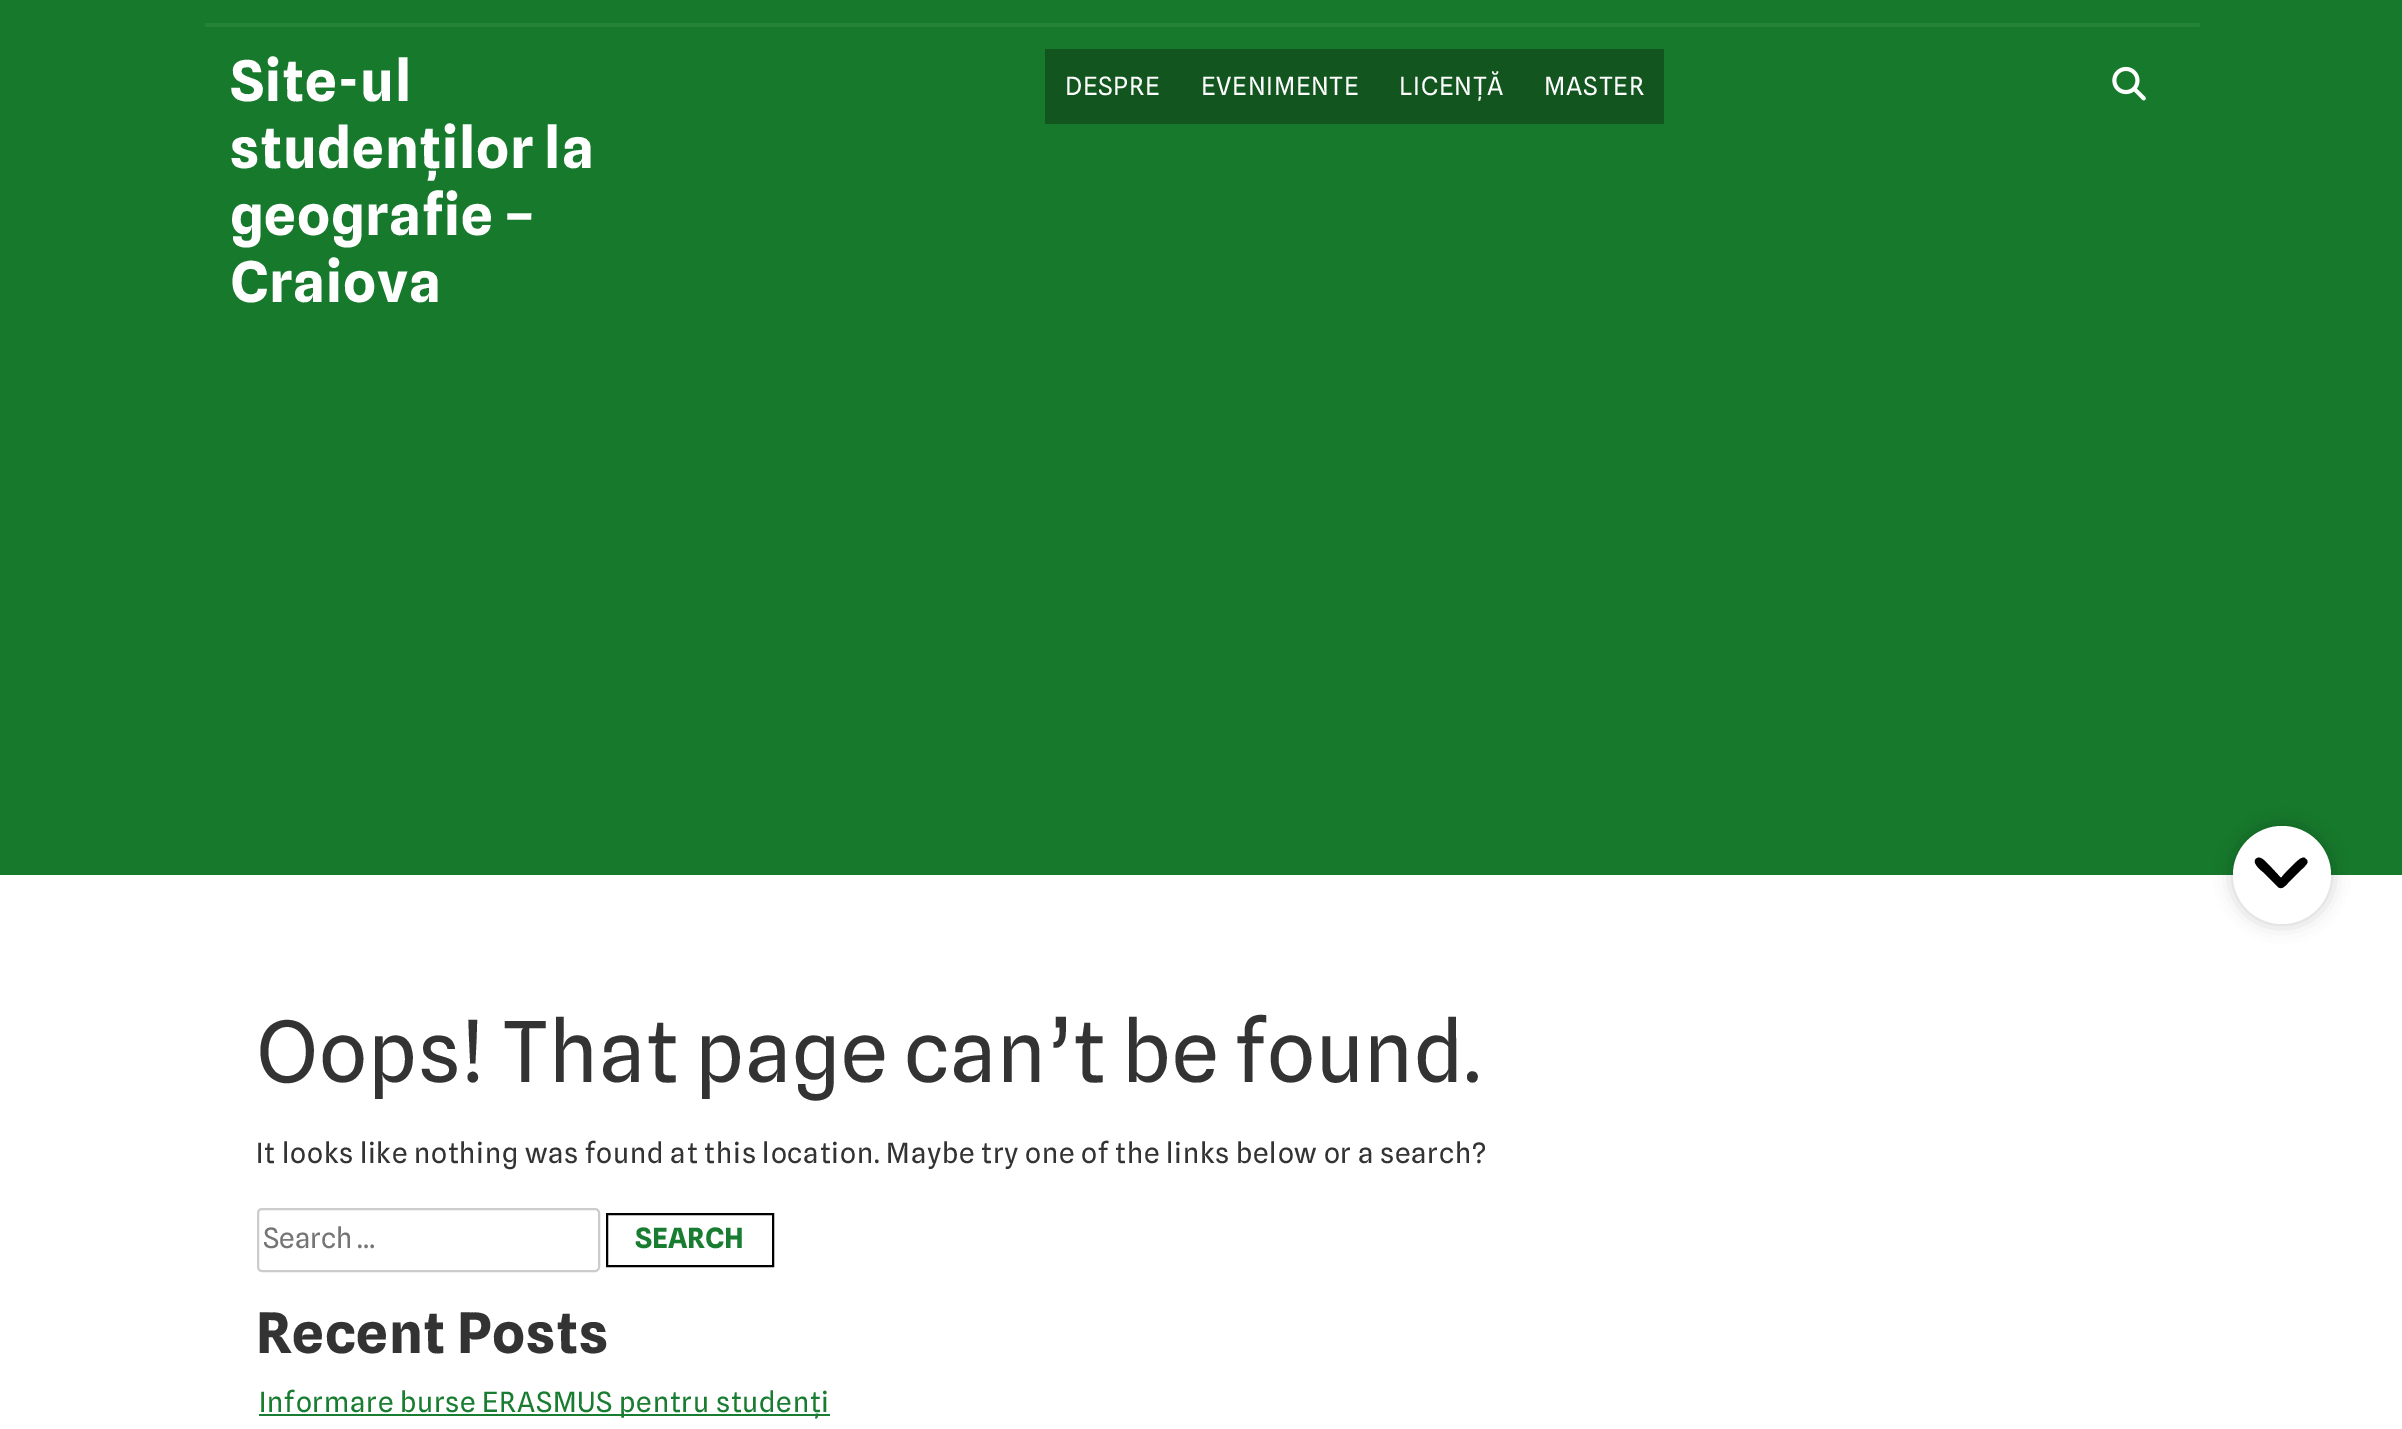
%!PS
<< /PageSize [2402 1429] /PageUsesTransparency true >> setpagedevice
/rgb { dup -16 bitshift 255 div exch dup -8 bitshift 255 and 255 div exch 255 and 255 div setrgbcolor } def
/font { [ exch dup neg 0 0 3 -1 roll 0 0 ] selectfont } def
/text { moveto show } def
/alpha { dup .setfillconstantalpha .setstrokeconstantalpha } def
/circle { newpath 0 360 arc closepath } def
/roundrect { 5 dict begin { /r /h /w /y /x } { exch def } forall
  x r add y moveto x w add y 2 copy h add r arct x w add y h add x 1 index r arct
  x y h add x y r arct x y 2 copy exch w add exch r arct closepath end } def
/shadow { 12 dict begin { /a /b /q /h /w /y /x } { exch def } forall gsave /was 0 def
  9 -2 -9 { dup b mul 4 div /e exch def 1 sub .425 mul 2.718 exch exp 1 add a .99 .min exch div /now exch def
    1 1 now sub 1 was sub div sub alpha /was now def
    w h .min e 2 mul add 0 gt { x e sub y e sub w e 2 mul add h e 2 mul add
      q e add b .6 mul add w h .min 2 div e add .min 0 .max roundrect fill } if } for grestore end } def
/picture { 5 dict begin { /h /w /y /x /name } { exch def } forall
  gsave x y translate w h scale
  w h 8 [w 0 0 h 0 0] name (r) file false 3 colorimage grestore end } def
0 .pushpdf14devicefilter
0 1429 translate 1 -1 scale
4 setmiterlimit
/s1 { /SplineSans-Regular 28 font 16#757575 rgb } def
/s2 { /SplineSans-Bold 28 font 16#187C31 rgb } def
16#FFFFFF rgb
0 0 2402 1429 rectfill
16#16792B rgb
0 0 2402 875 rectfill
16#258239 rgb
205 23 1995 4 rectfill
/SplineSans-Bold 56 font
16#FFFFFF rgb
230 101 moveto 0.85 0 (Site-ul) ashow
230 168 moveto 0.85 0 (studenților la) ashow
230 235 moveto 0.85 0 (geografie –) ashow
230 302 moveto 0.85 0 (Craiova) ashow
16#12551F rgb
1045 49 619 75 rectfill
/SplineSans-Regular 25.25 font
16#FFFFFF rgb
1065 95 moveto 0.85 0 (DESPRE) ashow
1201 95 moveto 0.85 0 (EVENIMENTE) ashow
1399 95 moveto 0.85 0 (LICENȚĂ) ashow
1544 95 moveto 0.85 0 (MASTER) ashow
(pic1.raw) 2112 66 34 35 picture
16#000000 rgb
2233 826 98 98 49 9 0.2 shadow
16#FFFFFF rgb
2282 875 49 circle fill
16#000000 rgb
2278 887 moveto 2282 890 2285 886 2288 883 curveto 2302 869 lineto 2305 866 2310 862 2306 859 curveto 2305 858 2304 857 2302 858 curveto 2299 858 2284 874 2281 878 curveto 2269 865 lineto 2266 863 2262 856 2257 858 curveto 2250 862 2262 871 2263 872 curveto closepath fill
/SplineSans-Regular 84 font
16#333333 rgb
256 1082 moveto 0.85 0 (Oops! That page can’t be found.) ashow
/SplineSans-Regular 28 font
256 1163 moveto 0.85 0 (It looks like nothing was found at this location. Maybe try one of the links below or a search?) ashow
16#CCCCCC rgb
2 setlinewidth
258 1209 341 62 4 roundrect stroke
s1
(Search …) 263 1248 text
16#000000 rgb
607 1214 166 52 rectstroke
s2
(SEARCH) 635 1248 text
/SplineSans-Bold 56 font
16#333333 rgb
256 1353 moveto 0.85 0 (Recent Posts) ashow
16#187C31 rgb
259 1414 571 2 rectfill
/SplineSans-Regular 28 font
259 1412 moveto 0.85 0 (Informare burse ERASMUS pentru studenți) ashow
.poppdf14devicefilter showpage
